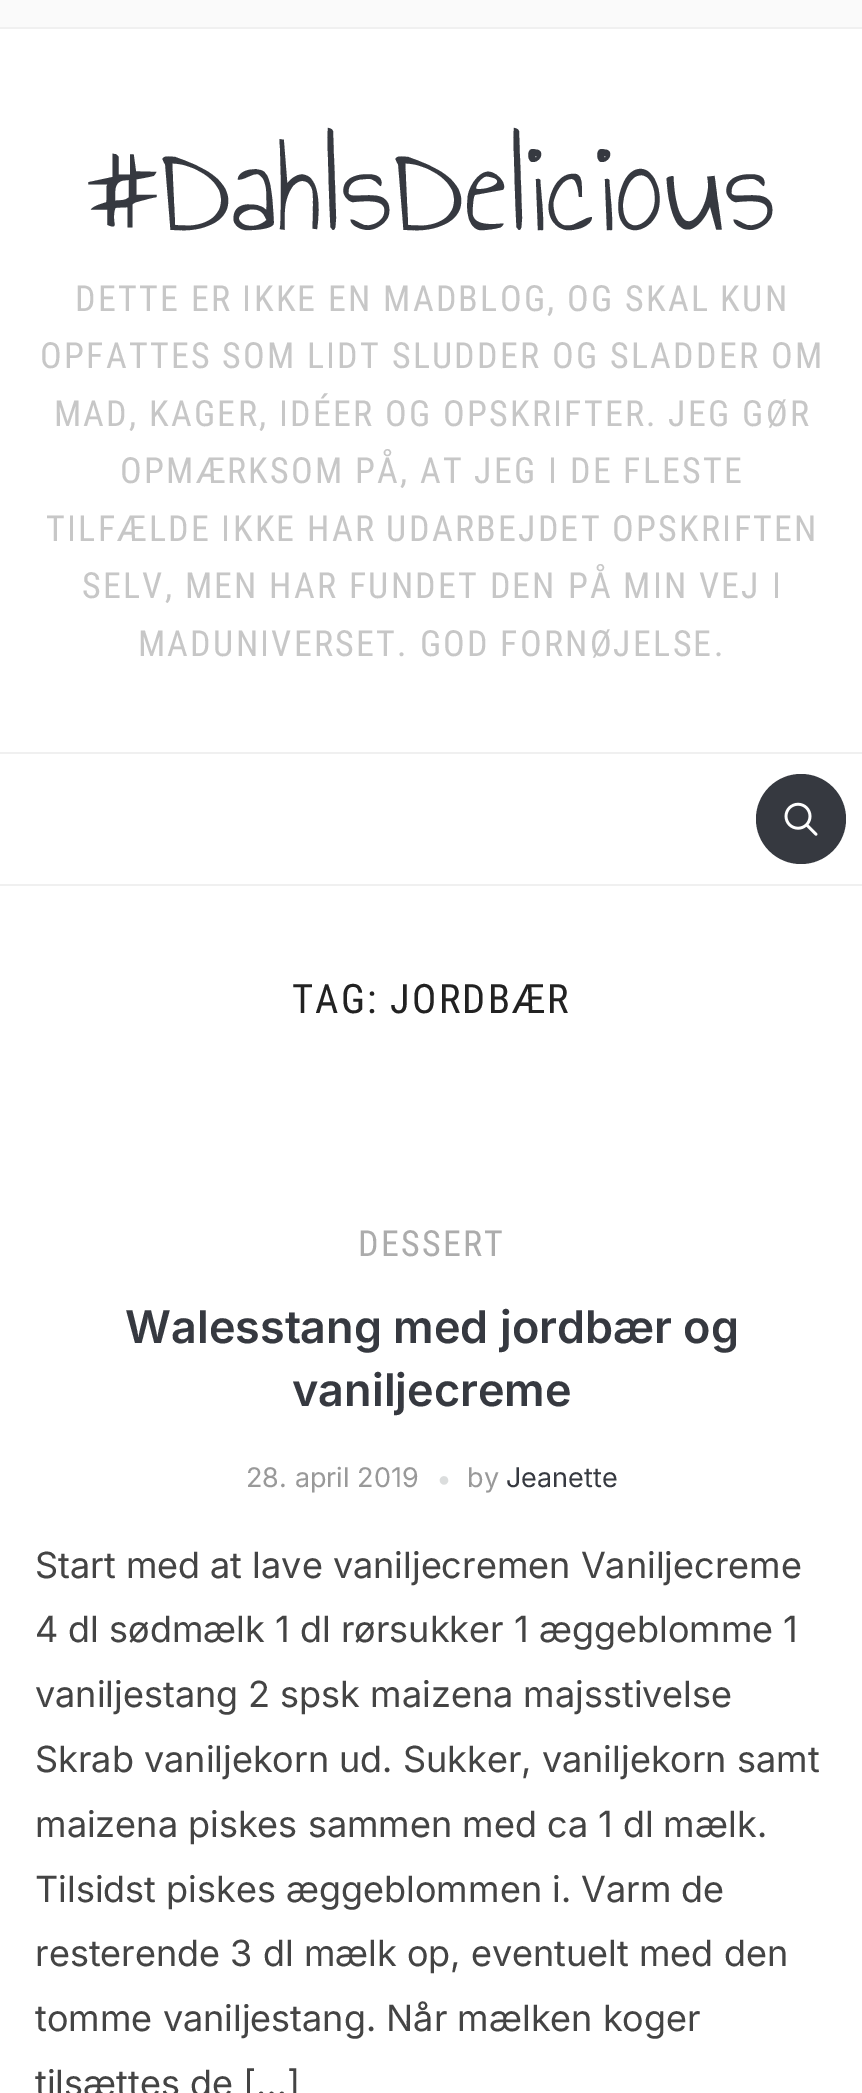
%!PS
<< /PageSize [862 2093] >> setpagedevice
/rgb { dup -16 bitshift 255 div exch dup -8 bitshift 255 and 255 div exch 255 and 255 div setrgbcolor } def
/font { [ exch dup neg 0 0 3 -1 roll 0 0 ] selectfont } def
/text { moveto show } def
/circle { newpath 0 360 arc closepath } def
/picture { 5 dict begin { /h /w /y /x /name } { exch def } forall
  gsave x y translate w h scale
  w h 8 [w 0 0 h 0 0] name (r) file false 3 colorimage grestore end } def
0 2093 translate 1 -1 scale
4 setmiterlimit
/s1 { /AnnieUseYourTelescope-Regular 135 font 16#363940 rgb } def
/s2 { /Inter-SemiBold 45 font 16#363940 rgb } def
/s3 { /Inter-Regular 27 font 16#999999 rgb } def
/s4 { /LiberationSans-Regular 20 font 16#DBDDDD rgb } def
/s5 { /Inter-Regular 27 font 16#363940 rgb } def
/s6 { /Inter-Regular 36 font 16#444444 rgb } def
16#FFFFFF rgb
0 0 862 2093 rectfill
16#FAFAFA rgb
0 0 862 27 rectfill
16#F0F0F0 rgb
0 27 862 2 rectfill
s1
(#DahlsDelicious) 87 230 text
/RobotoCondensed-Regular 36 font
16#C7C7C7 rgb
75 311 moveto 2.25 0 (DETTE ER IKKE EN MADBLOG, OG SKAL KUN) ashow
40 368 moveto 2.25 0 (OPFATTES SOM LIDT SLUDDER OG SLADDER OM) ashow
54 426 moveto 2.25 0 (MAD, KAGER, IDÉER OG OPSKRIFTER. JEG GØR) ashow
120 483 moveto 2.25 0 (OPMÆRKSOM PÅ, AT JEG I DE FLESTE) ashow
46 541 moveto 2.25 0 (TILFÆLDE IKKE HAR UDARBEJDET OPSKRIFTEN) ashow
82 598 moveto 2.25 0 (SELV, MEN HAR FUNDET DEN PÅ MIN VEJ I) ashow
138 656 moveto 2.25 0 (MADUNIVERSET. GOD FORNØJELSE.) ashow
16#F0F0F0 rgb
0 752 862 2 rectfill
0 884 862 2 rectfill
16#363940 rgb
801 819 45 circle fill
(pic1.raw) 784 802 34 34 picture
/RobotoCondensed-Regular 40.5 font
16#222222 rgb
292 1013 moveto 2.25 0 (TAG: JORDBÆR) ashow
/RobotoCondensed-Regular 36 font
16#ACACAC rgb
358 1256 moveto 2.25 0 (DESSERT) ashow
s2
(Walesstang med jordbær og) 125 1343 text
(vaniljecreme) 292 1406 text
s3
(28. april 2019) 246 1487 text
s4
(●) 438 1486 text
s3
(by) 467 1487 text
s5
(Jeanette) 506 1487 text
s6
(Start med at lave vaniljecremen Vaniljecreme) 35 1578 text
(4 dl sødmælk 1 dl rørsukker 1 æggeblomme 1) 35 1642 text
(vaniljestang 2 spsk maizena majsstivelse) 35 1707 text
(Skrab vaniljekorn ud. Sukker, vaniljekorn samt) 35 1772 text
(maizena piskes sammen med ca 1 dl mælk.) 35 1837 text
(Tilsidst piskes æggeblommen i. Varm de) 35 1902 text
(resterende 3 dl mælk op, eventuelt med den) 35 1966 text
(tomme vaniljestang. Når mælken koger) 35 2031 text
(tilsættes de […]) 35 2096 text
showpage
